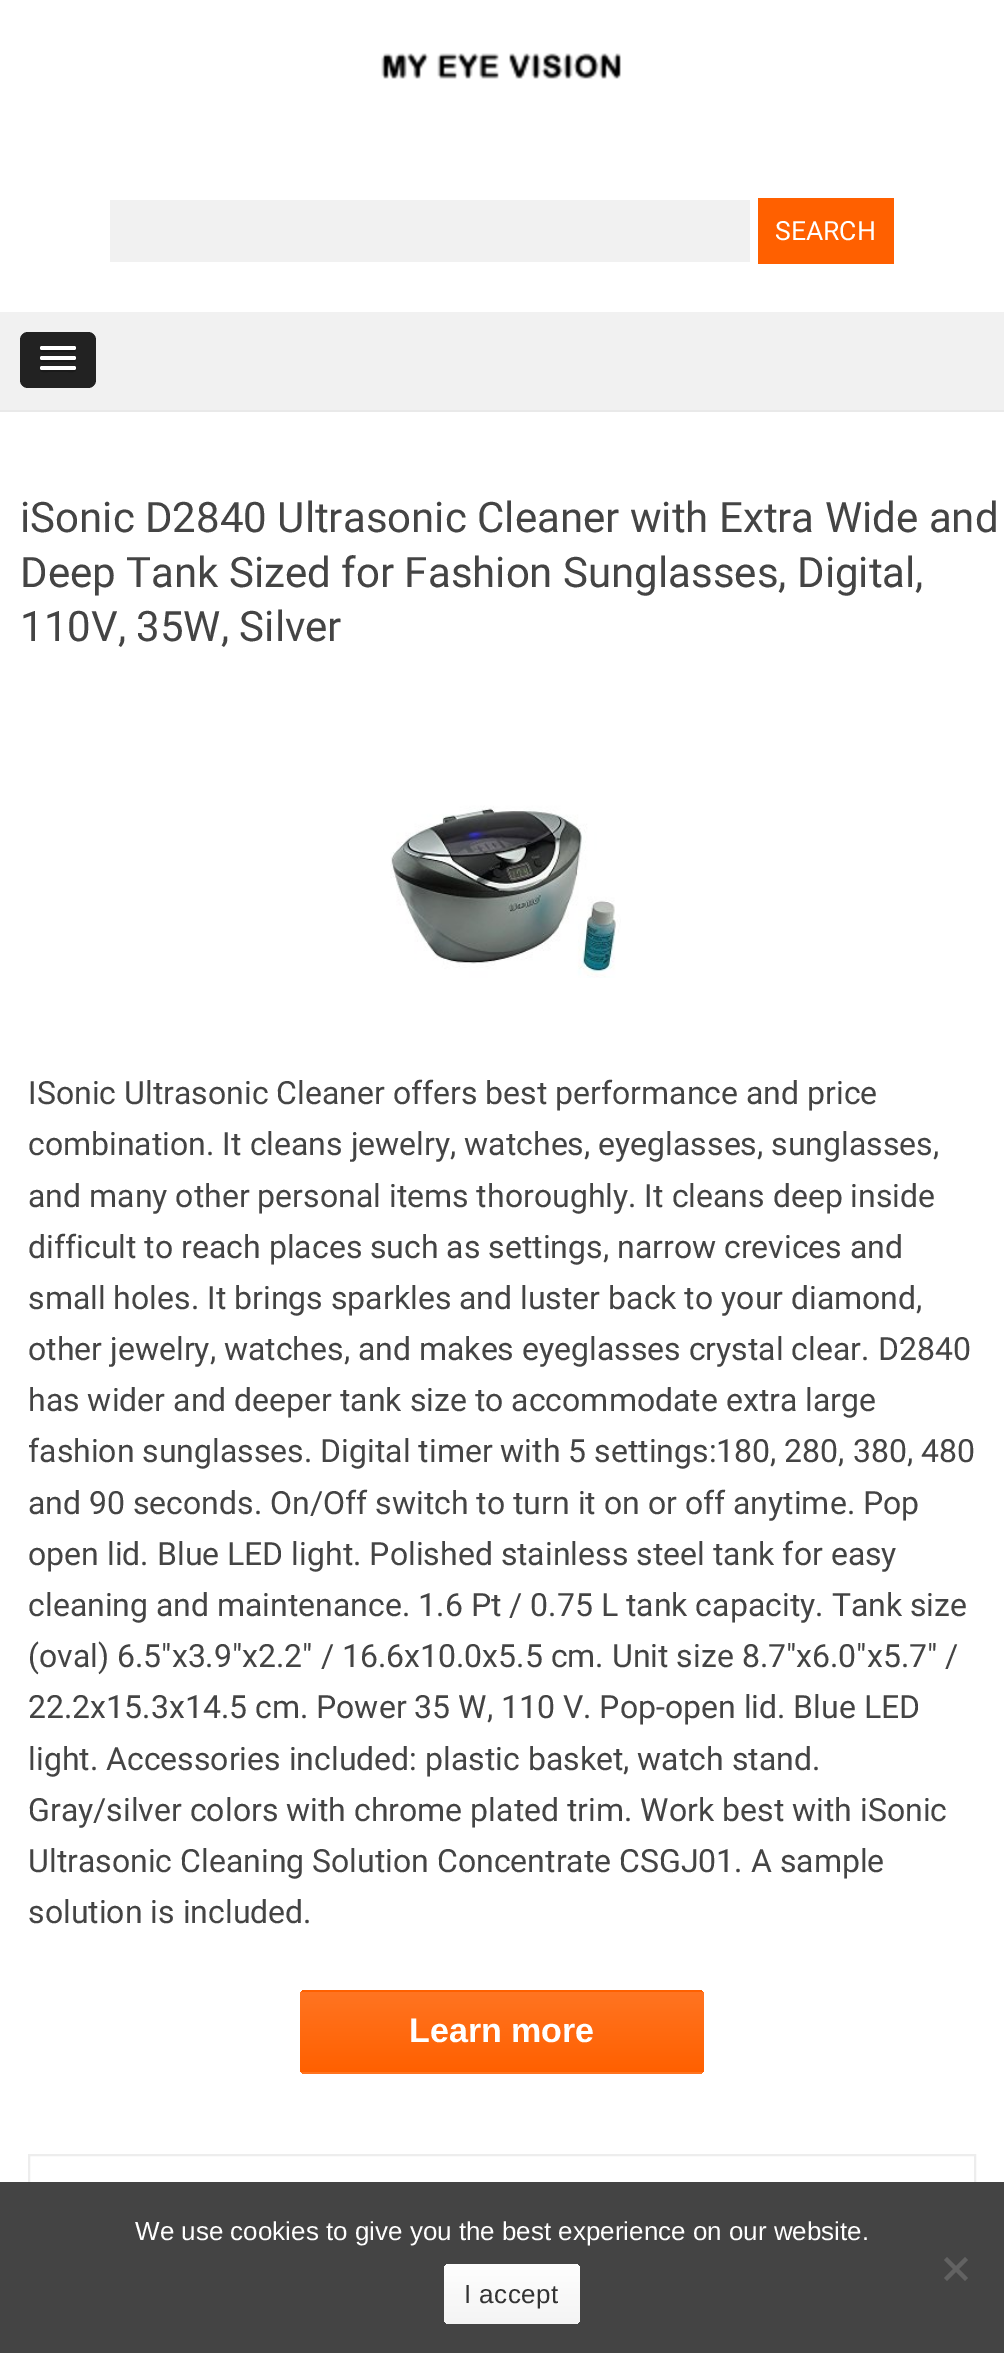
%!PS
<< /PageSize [1004 2353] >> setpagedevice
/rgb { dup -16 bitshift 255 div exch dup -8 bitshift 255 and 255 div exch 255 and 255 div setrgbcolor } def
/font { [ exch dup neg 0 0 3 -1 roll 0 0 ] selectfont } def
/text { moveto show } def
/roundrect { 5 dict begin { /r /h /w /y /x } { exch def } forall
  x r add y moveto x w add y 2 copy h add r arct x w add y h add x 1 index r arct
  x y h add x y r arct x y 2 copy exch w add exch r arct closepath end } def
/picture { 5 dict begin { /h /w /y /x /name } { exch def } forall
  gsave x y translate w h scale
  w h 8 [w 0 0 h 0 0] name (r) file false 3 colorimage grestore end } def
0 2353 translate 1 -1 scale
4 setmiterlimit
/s1 { /Roboto-Regular 26.5 font 16#FFFFFF rgb } def
/s2 { /Roboto-Regular 42 font 16#444444 rgb } def
/s3 { /Roboto-Regular 32 font 16#444444 rgb } def
/s4 { /LiberationSans-Bold 34 font 16#FFFFFF rgb } def
/s5 { /LiberationSans-Regular 26 font 16#FFFFFF rgb } def
16#FFFFFF rgb
0 0 1004 2353 rectfill
(pic1.raw) 381 53 240 26 picture
16#F1F1F1 rgb
110 200 640 62 rectfill
16#FF6000 rgb
758 198 136 66 rectfill
s1
(SEARCH) 775 240 text
16#F1F1F1 rgb
0 312 1004 98 rectfill
16#222222 rgb
20 332 76 56 8 roundrect fill
16#1A1A1A rgb
40.5 349 moveto 38 353 47 352 47.5 352 curveto 68.5 352 lineto 69 352 78 353 75.5 349 curveto 75.5 349.5 74.5 350 74 350 curveto 42 350 lineto 41.5 350 40.5 349.5 40.5 349 curveto closepath fill
16#FFFFFF rgb
40 346 36 4 2 roundrect fill
16#1A1A1A rgb
40.5 359 moveto 38 363 47 362 47.5 362 curveto 68.5 362 lineto 69 362 78 363 75.5 359 curveto 75.5 359.5 74.5 360 74 360 curveto 42 360 lineto 41.5 360 40.5 359.5 40.5 359 curveto closepath fill
16#FFFFFF rgb
40 356 36 4 2 roundrect fill
16#1A1A1A rgb
40.5 369 moveto 38 373 47 372 47.5 372 curveto 68.5 372 lineto 69 372 78 373 75.5 369 curveto 75.5 369.5 74.5 370 74 370 curveto 42 370 lineto 41.5 370 40.5 369.5 40.5 369 curveto closepath fill
16#FFFFFF rgb
40 366 36 4 2 roundrect fill
16#E9E9E9 rgb
0 410 1004 2 rectfill
s2
(iSonic D2840 Ultrasonic Cleaner with Extra Wide and) 20 532 text
(Deep Tank Sized for Fashion Sunglasses, Digital,) 20 587 text
(110V, 35W, Silver) 20 641 text
(pic2.raw) 390 805 231 173 picture
s3
(ISonic Ultrasonic Cleaner offers best performance and price) 28 1104 text
(combination. It cleans jewelry, watches, eyeglasses, sunglasses,) 28 1155 text
(and many other personal items thoroughly. It cleans deep inside) 28 1207 text
(difficult to reach places such as settings, narrow crevices and) 28 1258 text
(small holes. It brings sparkles and luster back to your diamond,) 28 1309 text
(other jewelry, watches, and makes eyeglasses crystal clear. D2840) 28 1360 text
(has wider and deeper tank size to accommodate extra large) 28 1411 text
(fashion sunglasses. Digital timer with 5 settings:180, 280, 380, 480) 28 1462 text
(and 90 seconds. On/Off switch to turn it on or off anytime. Pop) 28 1514 text
(open lid. Blue LED light. Polished stainless steel tank for easy) 28 1565 text
(cleaning and maintenance. 1.6 Pt / 0.75 L tank capacity. Tank size) 28 1616 text
(\(oval\) 6.5"x3.9"x2.2" / 16.6x10.0x5.5 cm. Unit size 8.7"x6.0"x5.7" /) 28 1667 text
(22.2x15.3x14.5 cm. Power 35 W, 110 V. Pop-open lid. Blue LED) 28 1718 text
(light. Accessories included: plastic basket, watch stand.) 28 1770 text
(Gray/silver colors with chrome plated trim. Work best with iSonic) 28 1821 text
(Ultrasonic Cleaning Solution Concentrate CSGJ01. A sample) 28 1872 text
(solution is included.) 28 1923 text
gsave
300 1990 404 84 6 roundrect clip newpath
gsave 300 1990 moveto 704 1990 lineto 704 1992 lineto 300 1992 lineto closepath clip newpath
<< /ShadingType 2 /ColorSpace /DeviceRGB /Coords [502 1912 502 1992] /Extend [true true] /Function << /FunctionType 2 /Domain [0 1] /C0 [1 0.455 0.129] /C1 [1 0.376 0] /N 1 >> >> shfill grestore
gsave 300 1992 moveto 704 1992 lineto 704 2072 lineto 300 2072 lineto closepath clip newpath
<< /ShadingType 2 /ColorSpace /DeviceRGB /Coords [502 1992 502 2072] /Extend [true true] /Function << /FunctionType 2 /Domain [0 1] /C0 [1 0.455 0.129] /C1 [1 0.376 0] /N 1 >> >> shfill grestore
gsave 300 2072 moveto 704 2072 lineto 704 2074 lineto 300 2074 lineto closepath clip newpath
<< /ShadingType 2 /ColorSpace /DeviceRGB /Coords [502 2072 502 2152] /Extend [true true] /Function << /FunctionType 2 /Domain [0 1] /C0 [1 0.455 0.129] /C1 [1 0.376 0] /N 1 >> >> shfill grestore
grestore
s4
(Learn more) 409 2042 text
16#EDEDED rgb
2 setlinewidth
29 2155 946 126 rectstroke
16#444444 rgb
0 2182 1004 171 rectfill
s5
(We use cookies to give you the best experience on our website.) 135 2240 text
16#626262 rgb
965 2257 moveto 968 2260 lineto 947 2281 lineto 944 2278 lineto closepath fill
944 2260 moveto 947 2257 lineto 968 2278 lineto 965 2281 lineto closepath fill
gsave 444 2264 136 60 6 roundrect clip newpath
<< /ShadingType 2 /ColorSpace /DeviceRGB /Coords [512 2264 512 2324] /Extend [true true] /Function << /FunctionType 2 /Domain [0 1] /C0 [0.996 0.996 0.996] /C1 [0.957 0.957 0.957] /N 1 >> >> shfill grestore
16#333333 rgb
464 2303 moveto 0.5 0 (I accept) ashow
showpage
